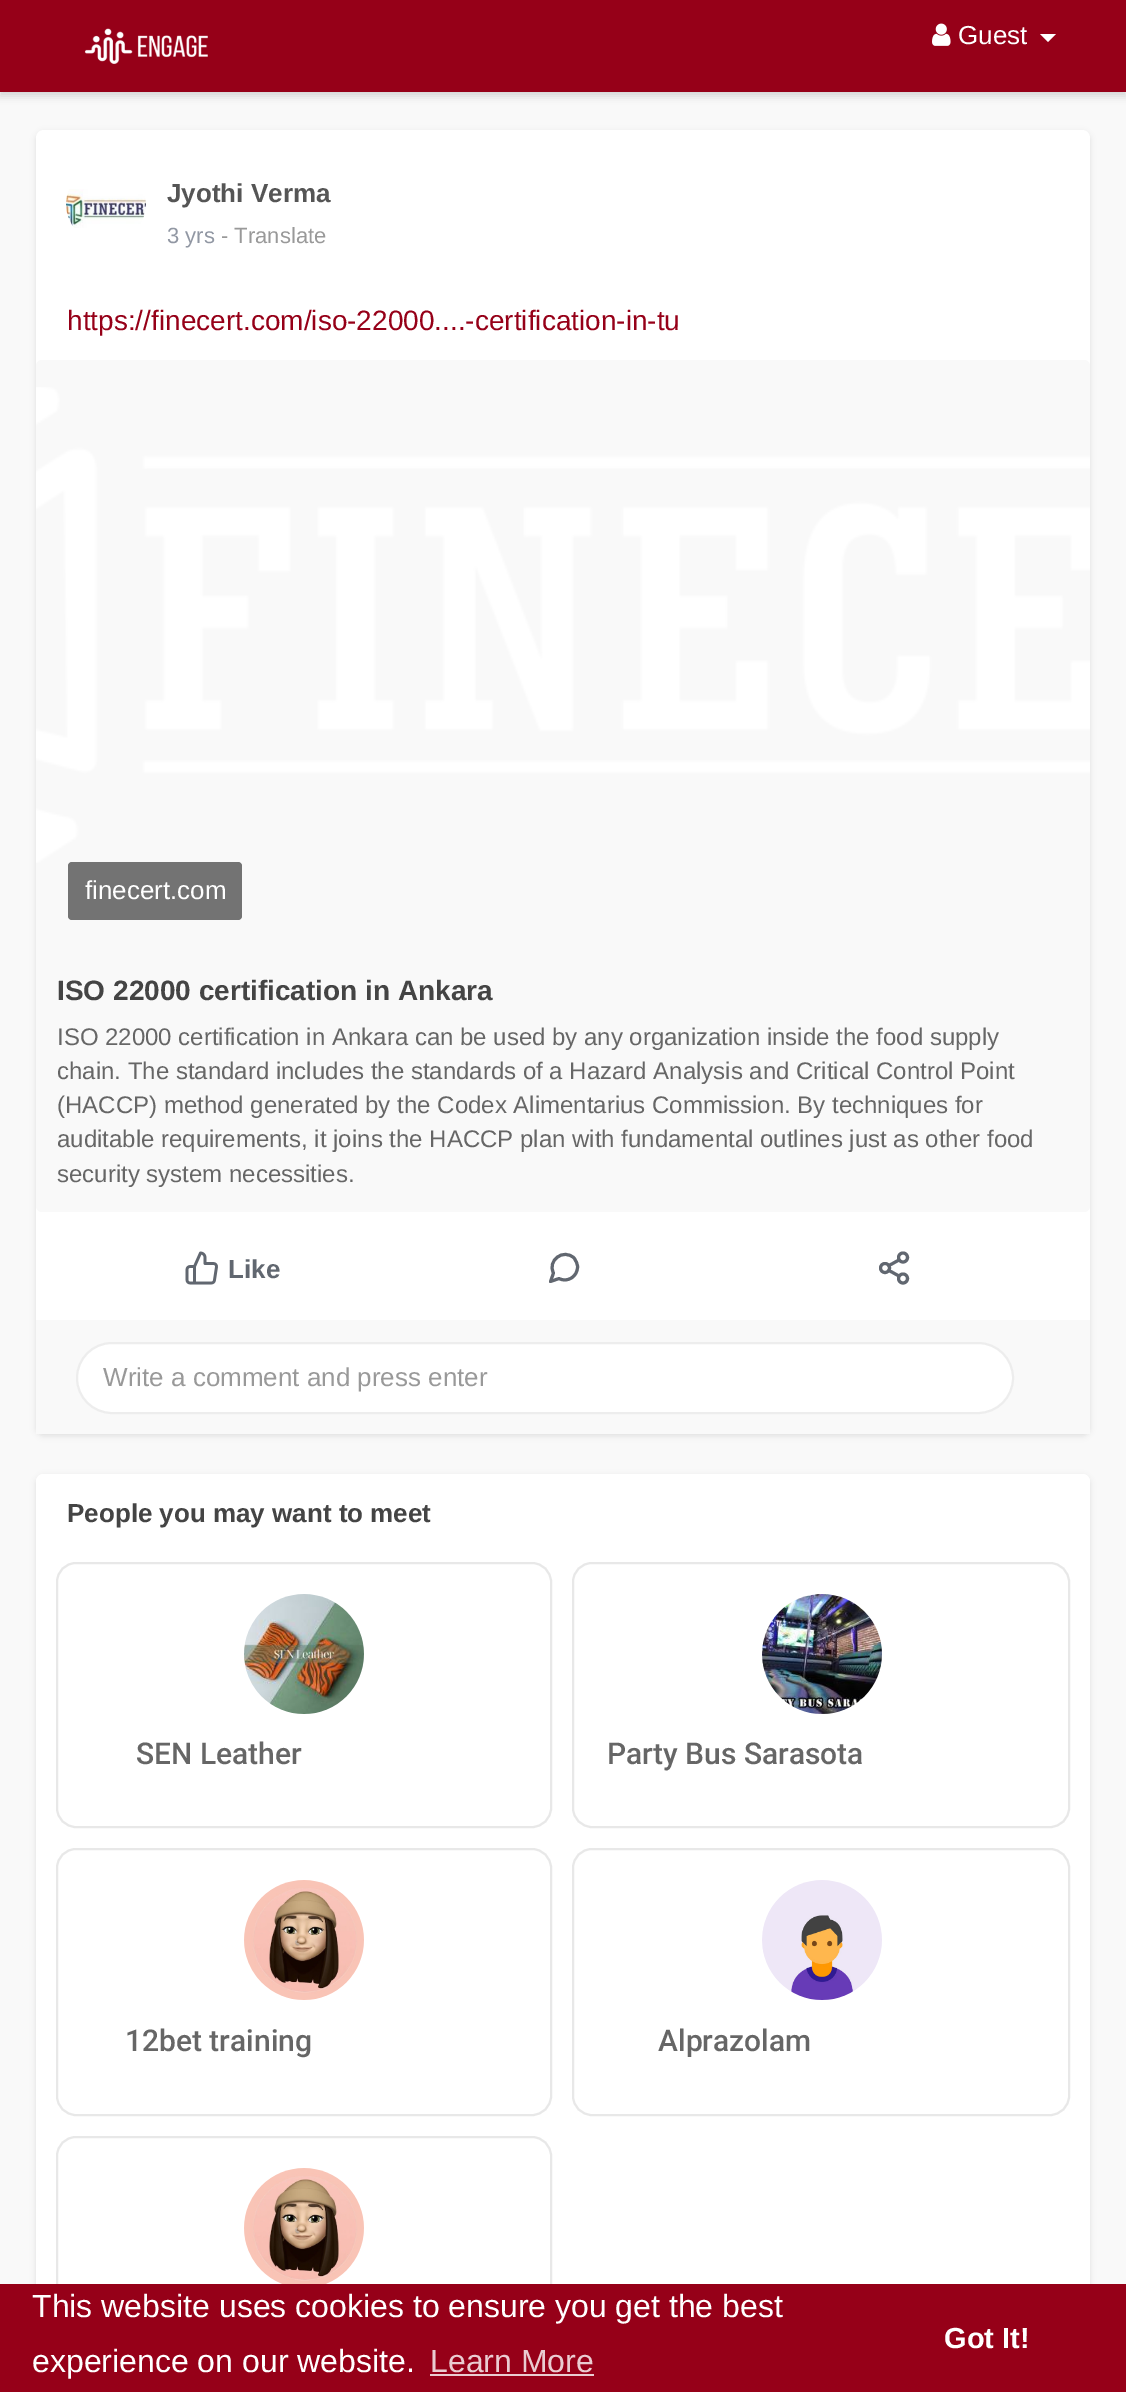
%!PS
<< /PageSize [1126 2392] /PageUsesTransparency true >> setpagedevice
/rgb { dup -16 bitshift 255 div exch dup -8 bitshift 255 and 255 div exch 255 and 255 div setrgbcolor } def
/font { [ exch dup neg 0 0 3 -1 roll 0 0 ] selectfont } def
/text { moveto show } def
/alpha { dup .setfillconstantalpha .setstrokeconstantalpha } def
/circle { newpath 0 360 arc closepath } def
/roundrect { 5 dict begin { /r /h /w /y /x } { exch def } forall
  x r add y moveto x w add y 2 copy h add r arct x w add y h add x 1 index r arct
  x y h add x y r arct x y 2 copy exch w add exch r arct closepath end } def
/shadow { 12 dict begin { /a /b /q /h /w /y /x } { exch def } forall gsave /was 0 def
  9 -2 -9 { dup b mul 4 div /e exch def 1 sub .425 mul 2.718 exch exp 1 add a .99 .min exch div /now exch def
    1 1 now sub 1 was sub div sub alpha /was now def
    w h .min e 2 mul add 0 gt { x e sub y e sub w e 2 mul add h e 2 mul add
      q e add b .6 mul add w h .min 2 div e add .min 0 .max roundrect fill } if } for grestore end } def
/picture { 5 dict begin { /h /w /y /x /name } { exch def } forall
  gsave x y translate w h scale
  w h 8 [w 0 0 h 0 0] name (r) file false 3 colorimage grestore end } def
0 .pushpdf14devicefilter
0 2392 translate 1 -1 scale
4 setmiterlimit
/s1 { /LiberationSans-Regular 26 font 16#FFFFFF rgb } def
/s2 { /LiberationSans-Bold 26 font 16#555555 rgb } def
/s3 { /LiberationSans-Regular 22 font 16#9197A3 rgb } def
/s4 { /LiberationSans-Regular 22 font 16#999999 rgb } def
/s5 { /LiberationSans-Regular 28 font 16#960018 rgb } def
/s6 { /LiberationSans-Bold 28 font 16#444444 rgb } def
/s7 { /LiberationSans-Regular 24 font 16#666666 rgb } def
/s8 { /LiberationSans-Bold 26 font 16#616770 rgb } def
/s9 { /LiberationSans-Regular 26 font 16#999999 rgb } def
/s10 { /LiberationSans-Bold 26 font 16#444444 rgb } def
/s11 { /Roboto-Medium 30 font 16#666666 rgb } def
/s12 { /LiberationSans-Regular 32 font 16#FFFFFF rgb } def
/s13 { /LiberationSans-Regular 32 font 16#EACCD1 rgb } def
/s14 { /LiberationSans-Bold 29 font 16#FFFFFF rgb } def
16#F9F9F9 rgb
0 0 1126 2392 rectfill
16#000000 rgb
0 4 1126 92 0 4 0.15 shadow
16#960018 rgb
0 0 1126 92 rectfill
(pic1.raw) 84 28 124 36 picture
(pic2.raw) 932 23 19 23 picture
s1
(Guest) 958 44 text
1040 34 moveto 1056 34 lineto 1048 42 lineto closepath fill
16#000000 rgb
36 132 1054 1304 8 3 0.1 shadow
16#FFFFFF rgb
36 130 1054 1304 8 roundrect fill
(pic3.raw) 66 189 80 39 picture
s2
(Jyothi Verma) 167 202 text
s3
(3 yrs) 167 243 text
s4
(- Translate) 221 243 text
s5
(https://finecert.com/iso-22000....-certification-in-tu) 67 330 text
16#F9F9F9 rgb
36 360 1054 852 6 roundrect fill
(pic4.raw) 36 387 1054 476 picture
16#737373 rgb
68 862 174 58 4 roundrect fill
s1
(finecert.com) 85 899 text
s6
(ISO 22000 certification in Ankara) 57 1000 text
s7
(ISO 22000 certification in Ankara can be used by any organization inside the food supply) 57 1045 text
(chain. The standard includes the standards of a Hazard Analysis and Critical Control Point) 57 1079 text
(\(HACCP\) method generated by the Codex Alimentarius Commission. By techniques for) 57 1113 text
(auditable requirements, it joins the HACCP plan with fundamental outlines just as other food) 57 1147 text
(security system necessities.) 57 1182 text
(pic5.raw) 185 1251 33 34 picture
s8
(Like) 228 1278 text
3 setlinewidth
1 setlinecap
1 setlinejoin
577.5 1267 moveto 577.5 1276.5 567.5 1283 559 1278.5 curveto 550.5 1281.5 lineto 553.5 1273 lineto 547 1260.5 563.5 1248 574 1258 curveto 576 1260.5 577.5 1264 577.5 1267 curveto closepath stroke
0 setlinecap
0 setlinejoin
885 1268 4.5 circle stroke
903 1257.5 4.5 circle stroke
903 1278.5 4.5 circle stroke
1 setlinecap
1 setlinejoin
889 1270.5 moveto 899 1276 lineto 899 1260 moveto 889 1265.5 lineto stroke
16#F9F9F9 rgb
36 1320 1054 114 rectfill
16#FFFFFF rgb
77 1343 936 70 35 roundrect gsave fill grestore
16#EDEDED rgb
2 setlinewidth
0 setlinecap
0 setlinejoin
stroke
s9
(Write a comment and press enter) 103 1386 text
16#000000 rgb
36 1476 1054 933 8 3 0.1 shadow
16#FFFFFF rgb
36 1474 1054 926 8 roundrect fill
44 1474 moveto 1082 1474 lineto 1086.5 1474 1090 1477.5 1090 1482 curveto 1090 1552 lineto 36 1552 lineto 36 1482 lineto 36 1477.5 39.5 1474 44 1474 curveto closepath fill
s10
(People you may want to meet) 67 1522 text
16#E8E8E8 rgb
57 1563 494 264 19 roundrect stroke
(pic6.raw) 244 1594 120 120 picture
s11
(SEN Leather) 136 1764 text
16#E8E8E8 rgb
573 1563 496 264 19 roundrect stroke
(pic7.raw) 762 1594 120 120 picture
s11
(Party Bus Sarasota) 607 1764 text
16#E8E8E8 rgb
57 1849 494 266 19 roundrect stroke
(pic8.raw) 244 1880 120 120 picture
s11
(12bet training) 125 2051 text
16#E8E8E8 rgb
573 1849 496 266 19 roundrect stroke
(pic9.raw) 762 1880 120 120 picture
s11
(Alprazolam) 658 2051 text
16#E8E8E8 rgb
57 2137 494 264 19 roundrect stroke
(pic10.raw) 244 2168 120 116 picture
16#960018 rgb
0 2284 1126 108 rectfill
s12
(This website uses cookies to ensure you get the best) 32 2317 text
(experience on our website.) 32 2372 text
s13
(Learn More) 430 2372 text
430 2374 164 2 rectfill
s14
(Got It!) 944 2348 text
.poppdf14devicefilter showpage
